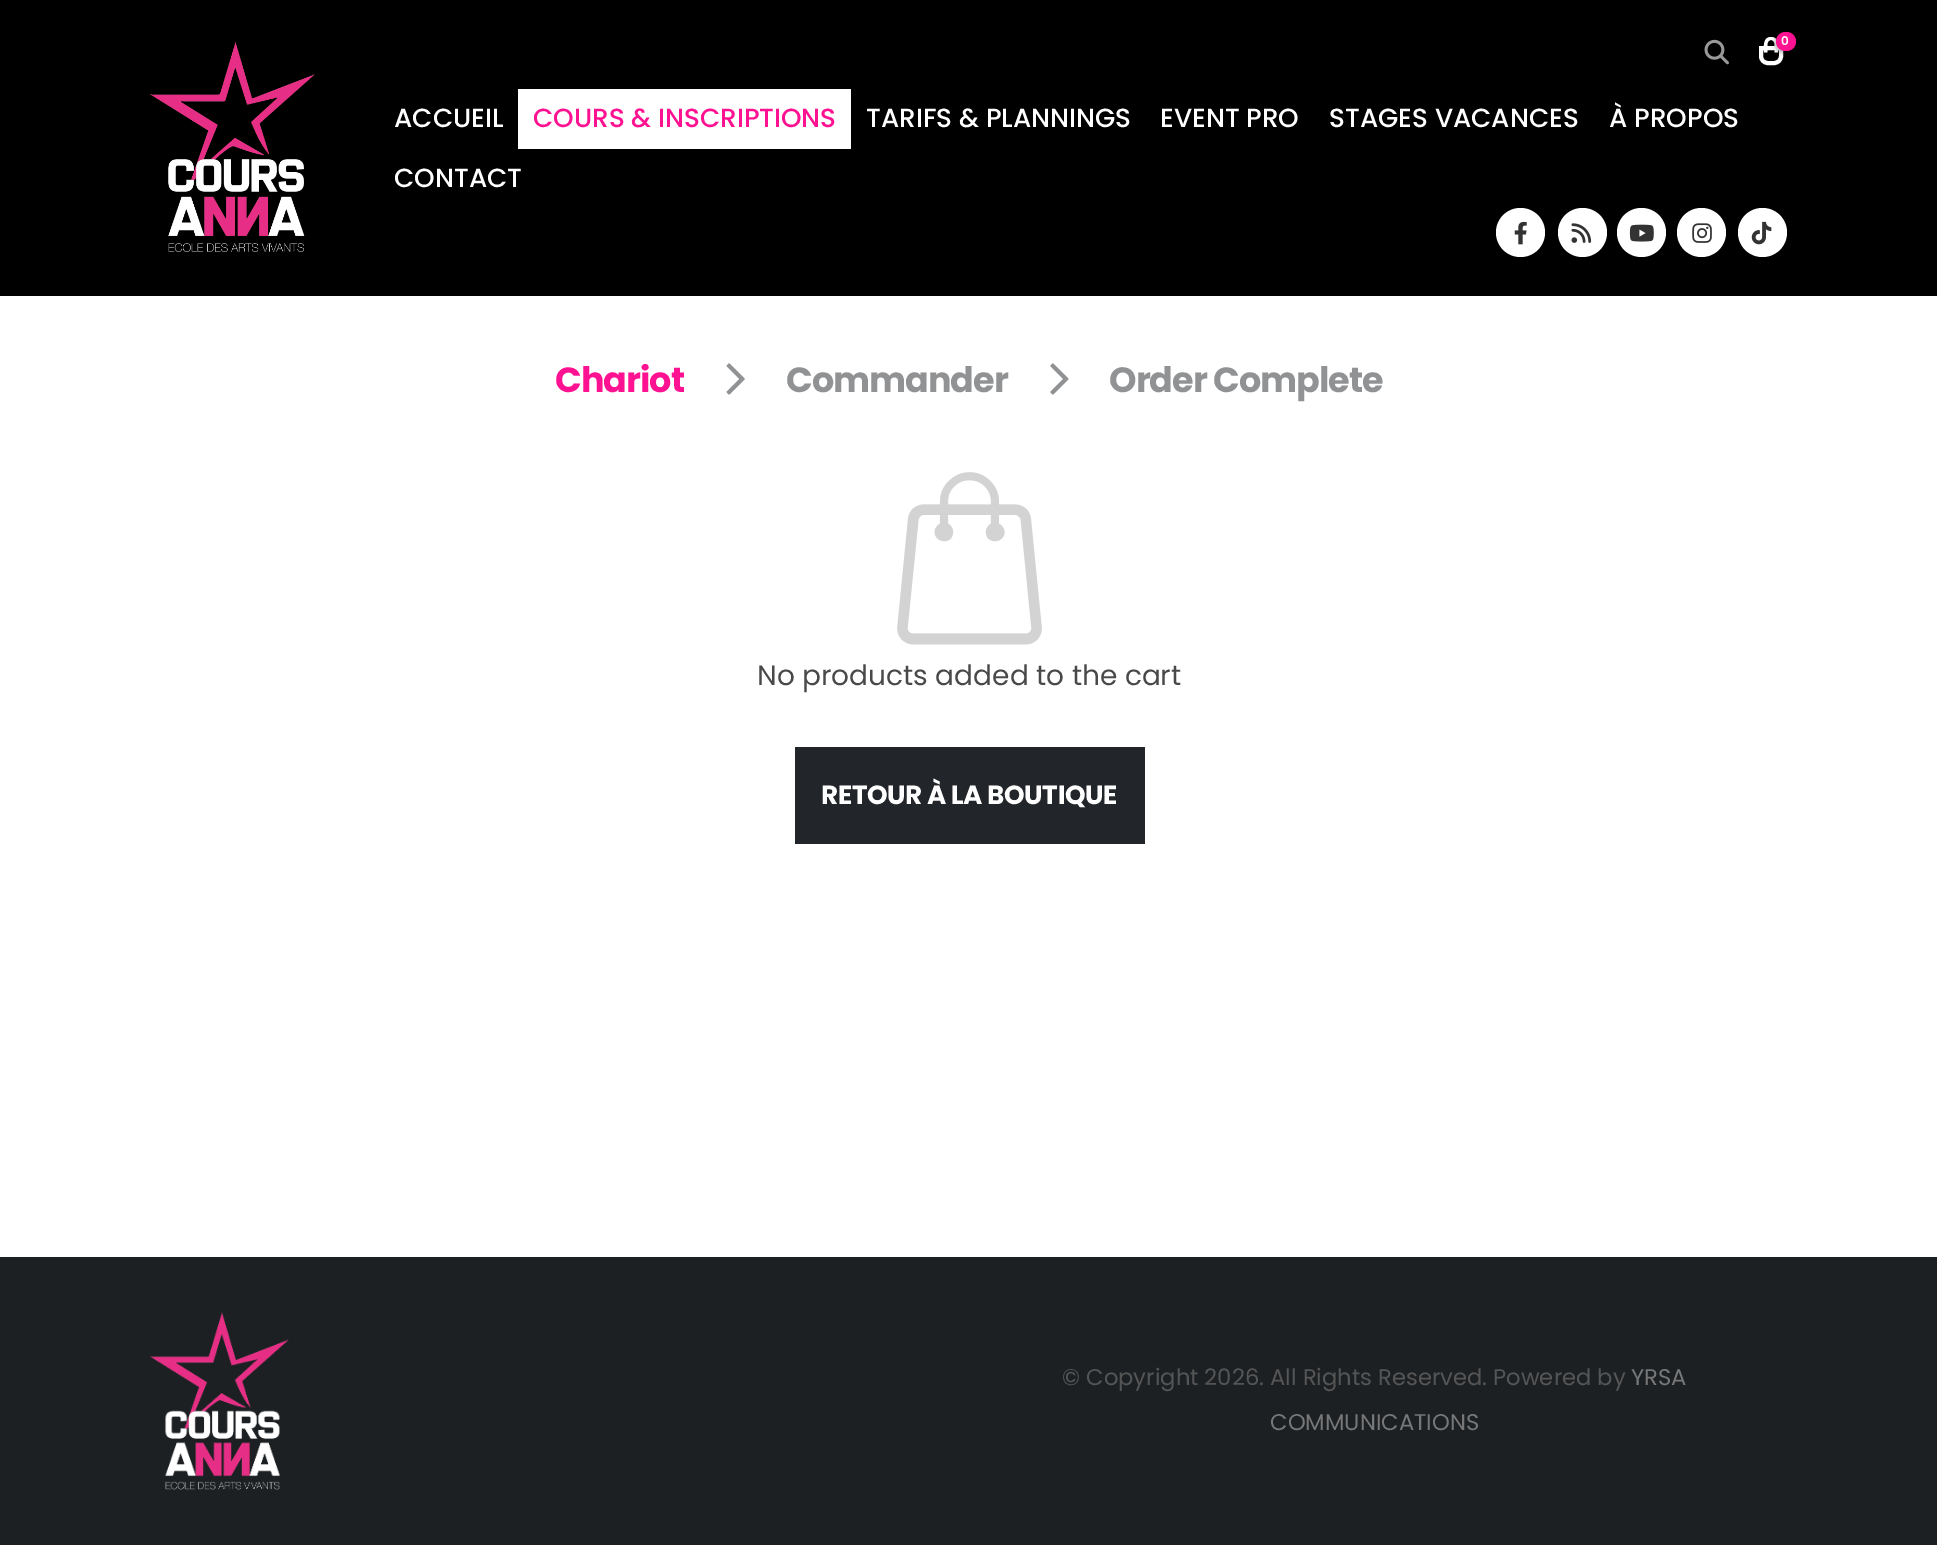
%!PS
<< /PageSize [1937 1545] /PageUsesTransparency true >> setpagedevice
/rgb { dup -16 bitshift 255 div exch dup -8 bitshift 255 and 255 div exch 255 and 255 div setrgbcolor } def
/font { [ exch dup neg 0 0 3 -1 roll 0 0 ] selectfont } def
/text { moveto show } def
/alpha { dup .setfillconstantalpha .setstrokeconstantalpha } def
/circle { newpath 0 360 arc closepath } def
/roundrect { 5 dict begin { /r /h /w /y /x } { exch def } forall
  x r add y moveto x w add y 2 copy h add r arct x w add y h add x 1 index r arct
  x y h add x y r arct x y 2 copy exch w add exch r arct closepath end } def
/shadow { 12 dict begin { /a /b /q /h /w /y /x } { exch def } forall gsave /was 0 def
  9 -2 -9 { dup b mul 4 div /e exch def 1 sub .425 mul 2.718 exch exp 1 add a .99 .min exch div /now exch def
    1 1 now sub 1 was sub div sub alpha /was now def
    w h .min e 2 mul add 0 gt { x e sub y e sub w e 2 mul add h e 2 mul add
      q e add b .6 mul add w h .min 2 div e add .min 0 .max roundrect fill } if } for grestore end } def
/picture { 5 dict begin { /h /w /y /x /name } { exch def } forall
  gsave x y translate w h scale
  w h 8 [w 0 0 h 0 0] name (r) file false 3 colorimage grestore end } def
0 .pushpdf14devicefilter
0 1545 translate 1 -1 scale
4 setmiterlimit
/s1 { /Poppins-SemiBold 12 font 16#FFFFFF rgb } def
/s2 { /Poppins-Medium 26.25 font 16#FFFFFF rgb } def
/s3 { /Poppins-Medium 26.25 font 16#FF1291 rgb } def
/s4 { /Poppins-Regular 28 font 16#494949 rgb } def
/s5 { /Poppins-Regular 22.7 font 16#555555 rgb } def
/s6 { /Poppins-Regular 22.7 font 16#777777 rgb } def
16#FFFFFF rgb
0 0 1937 1545 rectfill
16#000000 rgb
0 0 1937 296 rectfill
(pic1.raw) 150 42 165 210 picture
(pic2.raw) 1704 39 25 26 picture
16#FFFFFF rgb
4 setlinewidth
1761 48 moveto 1781 48 lineto 1781 56 lineto 1781 60 1778 63 1774 63 curveto 1768 63 lineto 1764 63 1761 60 1761 56 curveto closepath stroke
1771 37 moveto 1779.5 37 1778 47 1778 52.5 curveto 1764 52.5 lineto 1764 47 1762.5 37 1771 37 curveto closepath 1771 40 moveto 1773 40 1774.5 42 1774.5 44 curveto 1774.5 52.5 lineto 1767.5 52.5 lineto 1767.5 44 lineto 1767.5 42 1769 40 1771 40 curveto closepath eofill
16#000000 rgb
1775 33 19 20 9.5 2 0.3 shadow
16#FF1291 rgb
1776 32 20 19 9.5 roundrect fill
s1
(0) 1781 45 text
s2
(ACCUEIL) 394 127 text
518 89 333 60 rectfill
s3
(COURS & INSCRIPTIONS) 533 127 text
s2
(TARIFS & PLANNINGS) 866 127 text
(EVENT PRO) 1160 127 text
(STAGES VACANCES) 1329 127 text
(À PROPOS) 1609 127 text
(CONTACT) 394 187 text
1520.5 232.5 24.5 circle fill
(pic3.raw) 1514 221 13 24 picture
1582.5 232.5 24.5 circle fill
(pic4.raw) 1571 223 21 20 picture
1641.5 232.5 24.5 circle fill
(pic5.raw) 1629 224 25 18 picture
1701.5 232.5 24.5 circle fill
(pic6.raw) 1692 223 20 20 picture
1762.5 232.5 24.5 circle fill
(pic7.raw) 1751 221 21 24 picture
/Poppins-Bold 35 font
16#FF1291 rgb
555 392 moveto -1 0 (Chariot) ashow
(pic8.raw) 726 363 19 32 picture
16#919294 rgb
786 392 moveto -1 0 (Commander) ashow
(pic9.raw) 1050 363 19 32 picture
1109 392 moveto -1 0 (Order Complete) ashow
(pic10.raw) 897 472 145 173 picture
s4
(No products added to the cart) 757 685 text
16#222529 rgb
795 747 350 97 rectfill
/Poppins-Bold 26.25 font
16#FFFFFF rgb
821 804 moveto -0.4 0 (RETOUR À LA BOUTIQUE) ashow
16#1C2023 rgb
0 1257 1937 288 rectfill
(pic11.raw) 150 1312 139 178 picture
s5
(© Copyright 2026. All Rights Reserved. Powered by) 1062 1385 text
s6
(YRSA) 1631 1385 text
(COMMUNICATIONS) 1270 1430 text
.poppdf14devicefilter showpage
